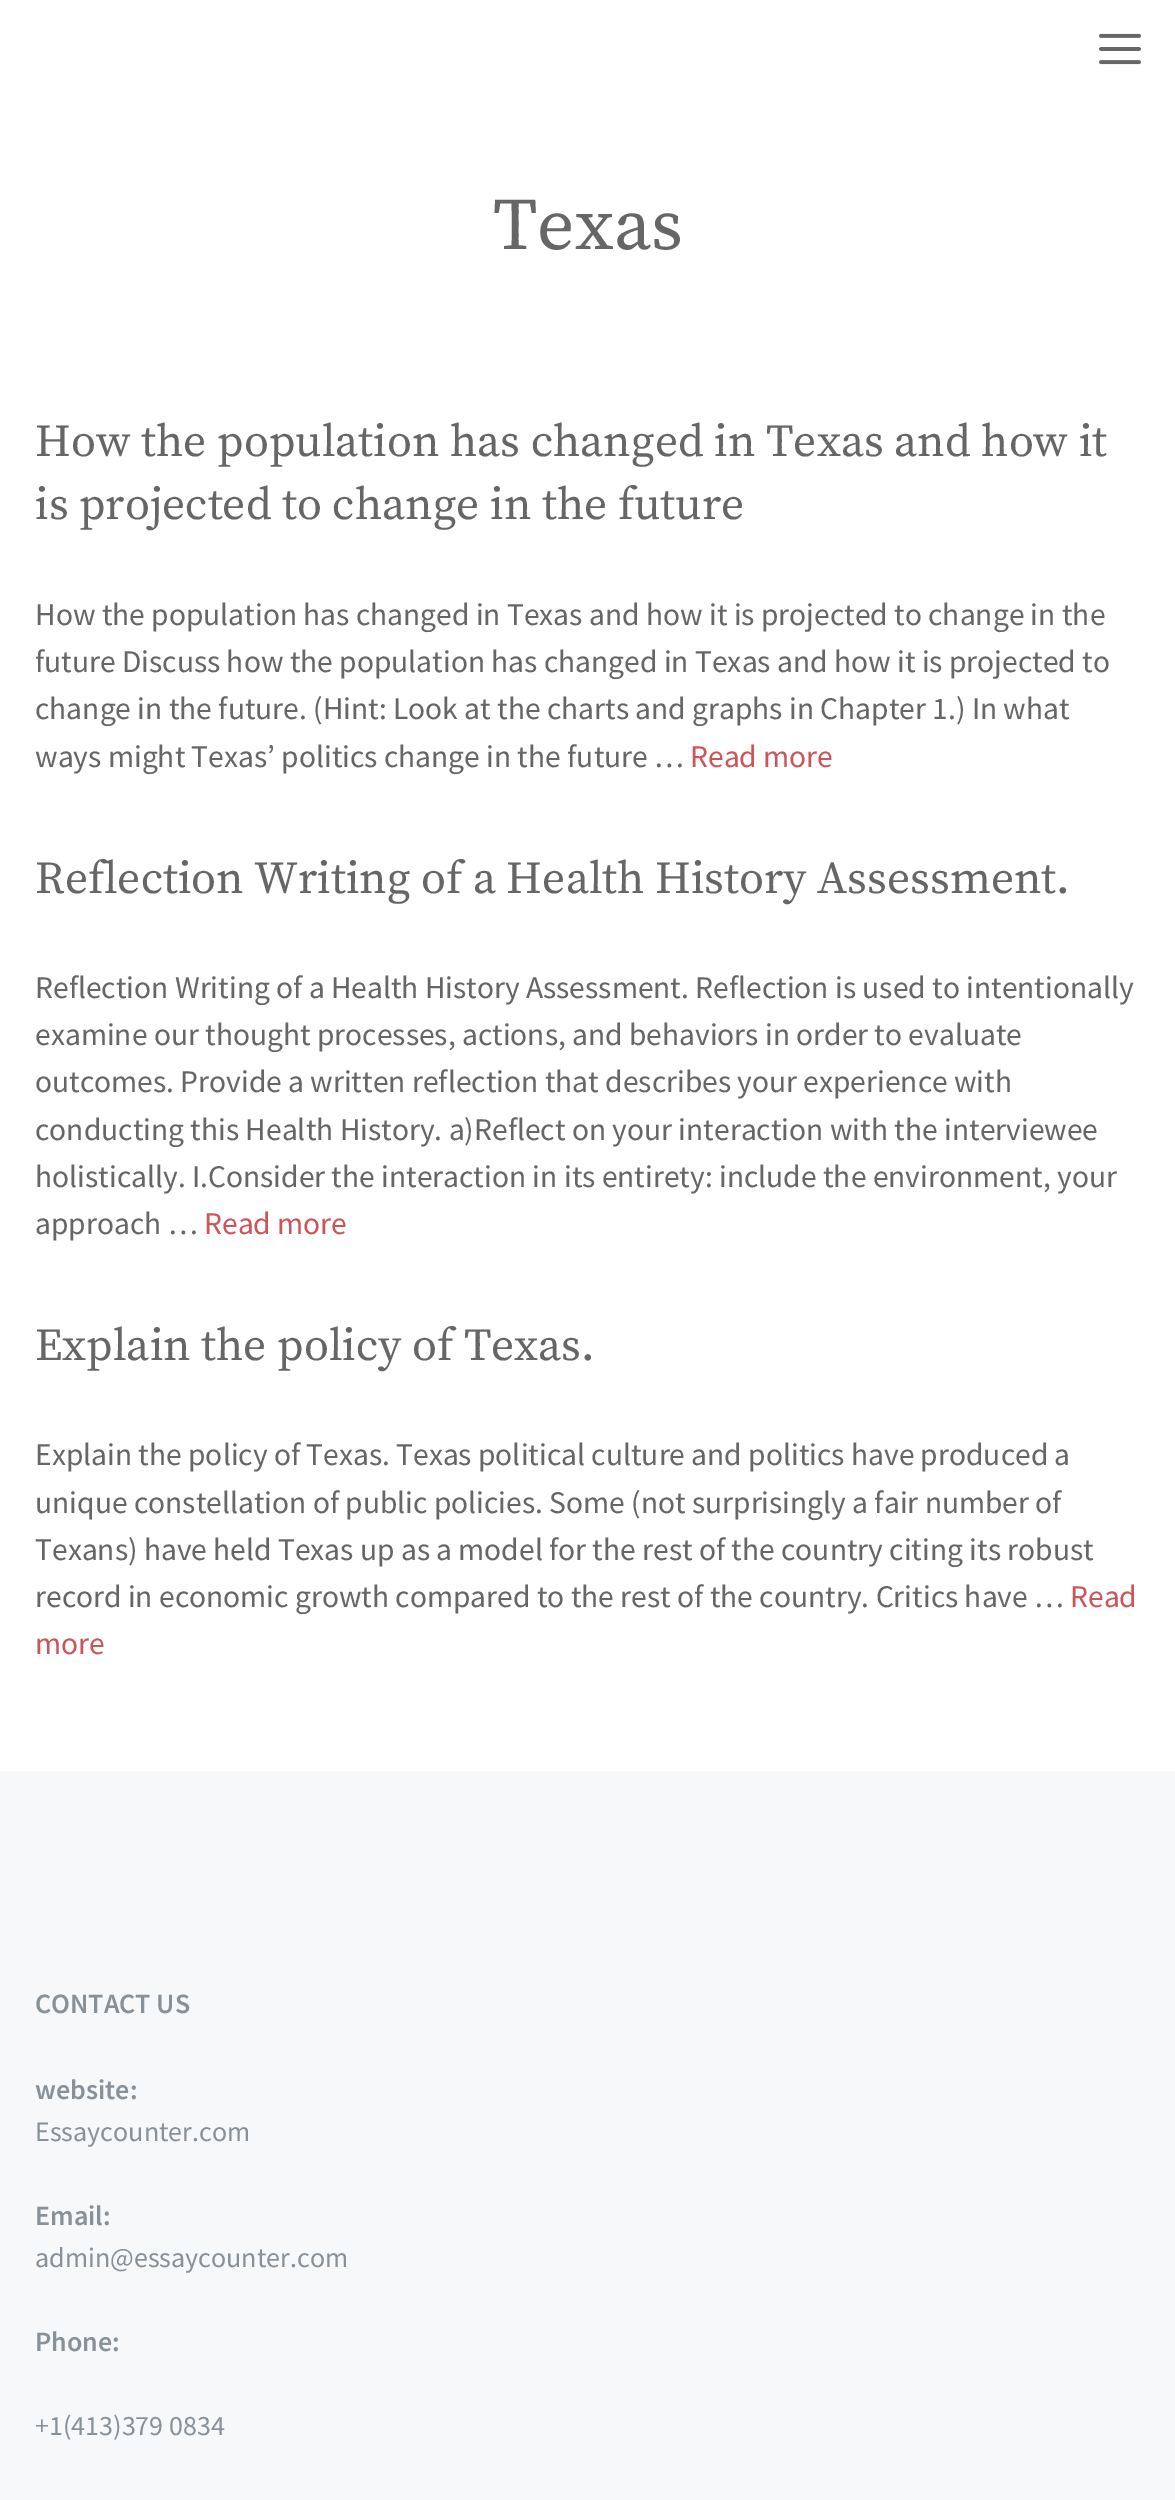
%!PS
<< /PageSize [1175 2500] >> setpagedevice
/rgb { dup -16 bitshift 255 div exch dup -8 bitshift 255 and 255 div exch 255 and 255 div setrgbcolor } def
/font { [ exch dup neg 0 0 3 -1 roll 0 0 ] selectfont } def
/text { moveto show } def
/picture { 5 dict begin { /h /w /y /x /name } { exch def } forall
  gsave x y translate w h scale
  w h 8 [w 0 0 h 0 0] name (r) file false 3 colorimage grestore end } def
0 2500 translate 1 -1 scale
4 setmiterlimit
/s1 { /SourceSerifPro-Regular 73.5 font 16#666666 rgb } def
/s2 { /SourceSerifPro-Regular 45.5 font 16#666666 rgb } def
/s3 { /SourceSansPro-Regular 31.5 font 16#666666 rgb } def
/s4 { /SourceSansPro-Regular 31.5 font 16#CC5559 rgb } def
/s5 { /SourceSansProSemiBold-SemiBold 28 font 16#869199 rgb } def
/s6 { /SourceSansPro-Regular 28 font 16#869199 rgb } def
16#FFFFFF rgb
0 0 1175 2500 rectfill
(pic1.raw) 1099 33 42 32 picture
s1
(Texas) 493 249 text
s2
(How the population has changed in Texas and how it) 35 456 text
(is projected to change in the future) 35 519 text
s3
(How the population has changed in Texas and how it is projected to change in the) 35 625 text
(future Discuss how the population has changed in Texas and how it is projected to) 35 672 text
(change in the future. \(Hint: Look at the charts and graphs in Chapter 1.\) In what) 35 719 text
(ways might Texas’ politics change in the future …) 35 767 text
s4
(Read more) 690 767 text
s2
(Reflection Writing of a Health History Assessment.) 35 893 text
s3
(Reflection Writing of a Health History Assessment. Reflection is used to intentionally) 35 998 text
(examine our thought processes, actions, and behaviors in order to evaluate) 35 1045 text
(outcomes. Provide a written reflection that describes your experience with) 35 1092 text
(conducting this Health History. a\)Reflect on your interaction with the interviewee) 35 1140 text
(holistically. I.Consider the interaction in its entirety: include the environment, your) 35 1187 text
(approach …) 35 1234 text
s4
(Read more) 204 1234 text
s2
(Explain the policy of Texas.) 35 1360 text
s3
(Explain the policy of Texas. Texas political culture and politics have produced a) 35 1465 text
(unique constellation of public policies. Some \(not surprisingly a fair number of) 35 1513 text
(Texans\) have held Texas up as a model for the rest of the country citing its robust) 35 1560 text
(record in economic growth compared to the rest of the country. Critics have …) 35 1607 text
s4
(Read) 1070 1607 text
(more) 35 1654 text
16#F7F8F9 rgb
0 1771 1175 729 rectfill
s5
(CONTACT US) 35 2013 text
(website:) 35 2099 text
s6
(Essaycounter.com) 35 2141 text
s5
(Email:) 35 2225 text
s6
(admin@essaycounter.com) 35 2267 text
s5
(Phone:) 35 2351 text
s6
(+1\(413\)379 0834) 35 2435 text
showpage
